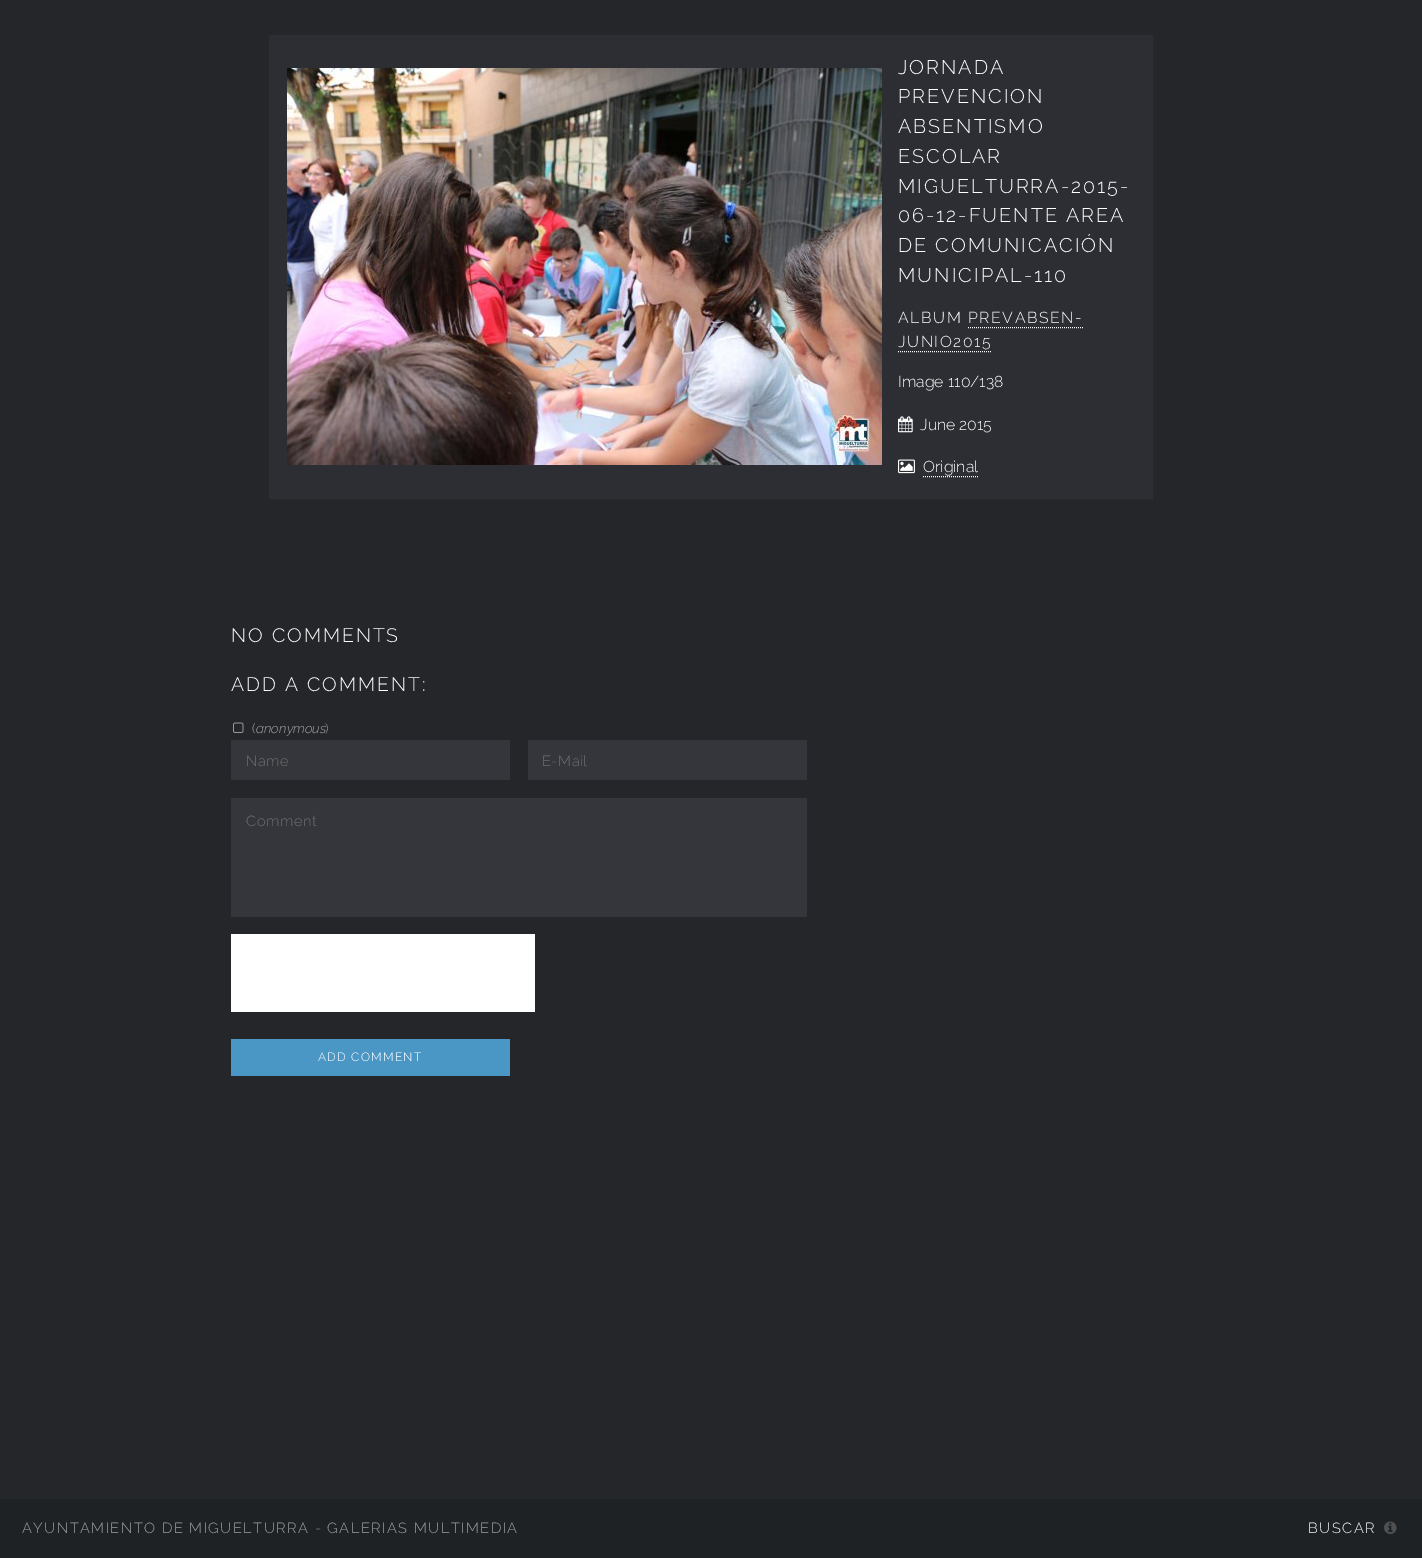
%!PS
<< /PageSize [1422 1558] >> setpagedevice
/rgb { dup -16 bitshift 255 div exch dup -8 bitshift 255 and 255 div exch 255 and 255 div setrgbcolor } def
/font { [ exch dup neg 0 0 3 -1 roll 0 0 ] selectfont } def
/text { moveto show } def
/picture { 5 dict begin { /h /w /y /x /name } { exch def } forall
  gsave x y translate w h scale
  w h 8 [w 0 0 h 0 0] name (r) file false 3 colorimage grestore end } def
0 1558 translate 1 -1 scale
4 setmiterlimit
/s1 { /Raleway-Light 15.8 font 16#FFFFFF rgb } def
/s2 { /Raleway-Light 13.5 font 16#A0A0A1 rgb } def
/s3 { /Raleway-LightItalic 13.5 font 16#A0A0A1 rgb } def
16#242629 rgb
0 0 1422 1558 rectfill
16#2C2E33 rgb
18 setlinewidth
278 44 866 446 rectstroke
287 53 848 428 rectfill
(pic1.raw) 287 68 595 397 picture
/Raleway-Light 19.75 font
16#FFFFFF rgb
898 74 moveto 2 0 (JORNADA) ashow
898 103 moveto 2 0 (PREVENCION) ashow
898 133 moveto 2 0 (ABSENTISMO) ashow
898 163 moveto 2 0 (ESCOLAR) ashow
898 193 moveto 2 0 (MIGUELTURRA-2015-) ashow
898 222 moveto 2 0 (06-12-FUENTE AREA) ashow
898 252 moveto 2 0 (DE COMUNICACIÓN) ashow
898 282 moveto 2 0 (MUNICIPAL-110) ashow
/Raleway-Light 15.8 font
898 323 moveto 1.6 0 (ALBUM PREVABSEN-) ashow
898 347 moveto 1.6 0 (JUNIO2015) ashow
1 setlinewidth
[1 1] 0 setdash
968 327.5 moveto 1084 327.5 lineto stroke
898 351.5 moveto 992 351.5 lineto stroke
(Image 110/138) 898 387 text
(pic2.raw) 898 416 15 17 picture
(June 2015) 920 430 text
(pic3.raw) 898 459 17 15 picture
(Original) 923 472 text
923 476.5 moveto 978 476.5 lineto stroke
/Raleway-Light 19.4 font
231 642 moveto 2 0 (NO COMMENTS) ashow
231 691 moveto 2 0 (ADD A COMMENT:) ashow
(pic4.raw) 233 722 11 11 picture
s2
(\() 252 733 text
s3
(anonymous) 256 733 text
s2
(\)) 325 733 text
16#34363B rgb
231 740 279 40 rectfill
/Raleway-Light 14.65 font
16#707071 rgb
246 766 moveto 0.5 0 (Name) ashow
16#34363B rgb
528 740 279 40 rectfill
16#707071 rgb
542 766 moveto 0.5 0 (E-Mail) ashow
16#34363B rgb
231 798 576 119 rectfill
16#707071 rgb
246 826 moveto 0.5 0 (Comment) ashow
16#FFFFFF rgb
231 934 304 78 rectfill
16#4A97C6 rgb
231 1039 279 37 rectfill
/Raleway-Light 12 font
16#FFFFFF rgb
318 1061 moveto 1.25 0 (ADD COMMENT) ashow
16#1F2224 rgb
0 1499 1422 59 rectfill
gsave
22 1521 498 15 rectclip
/Raleway-Light 14.65 font
16#A0A0A1 rgb
22 1533 moveto 1.45 0 (AYUNTAMIENTO DE MIGUELTURRA - GALERÍAS MULTIMEDIA) ashow
grestore
/Raleway-Light 14.65 font
16#FFFFFF rgb
1308 1533 moveto 1.45 0 (BUSCAR) ashow
(pic5.raw) 1384 1521 13 13 picture
showpage
